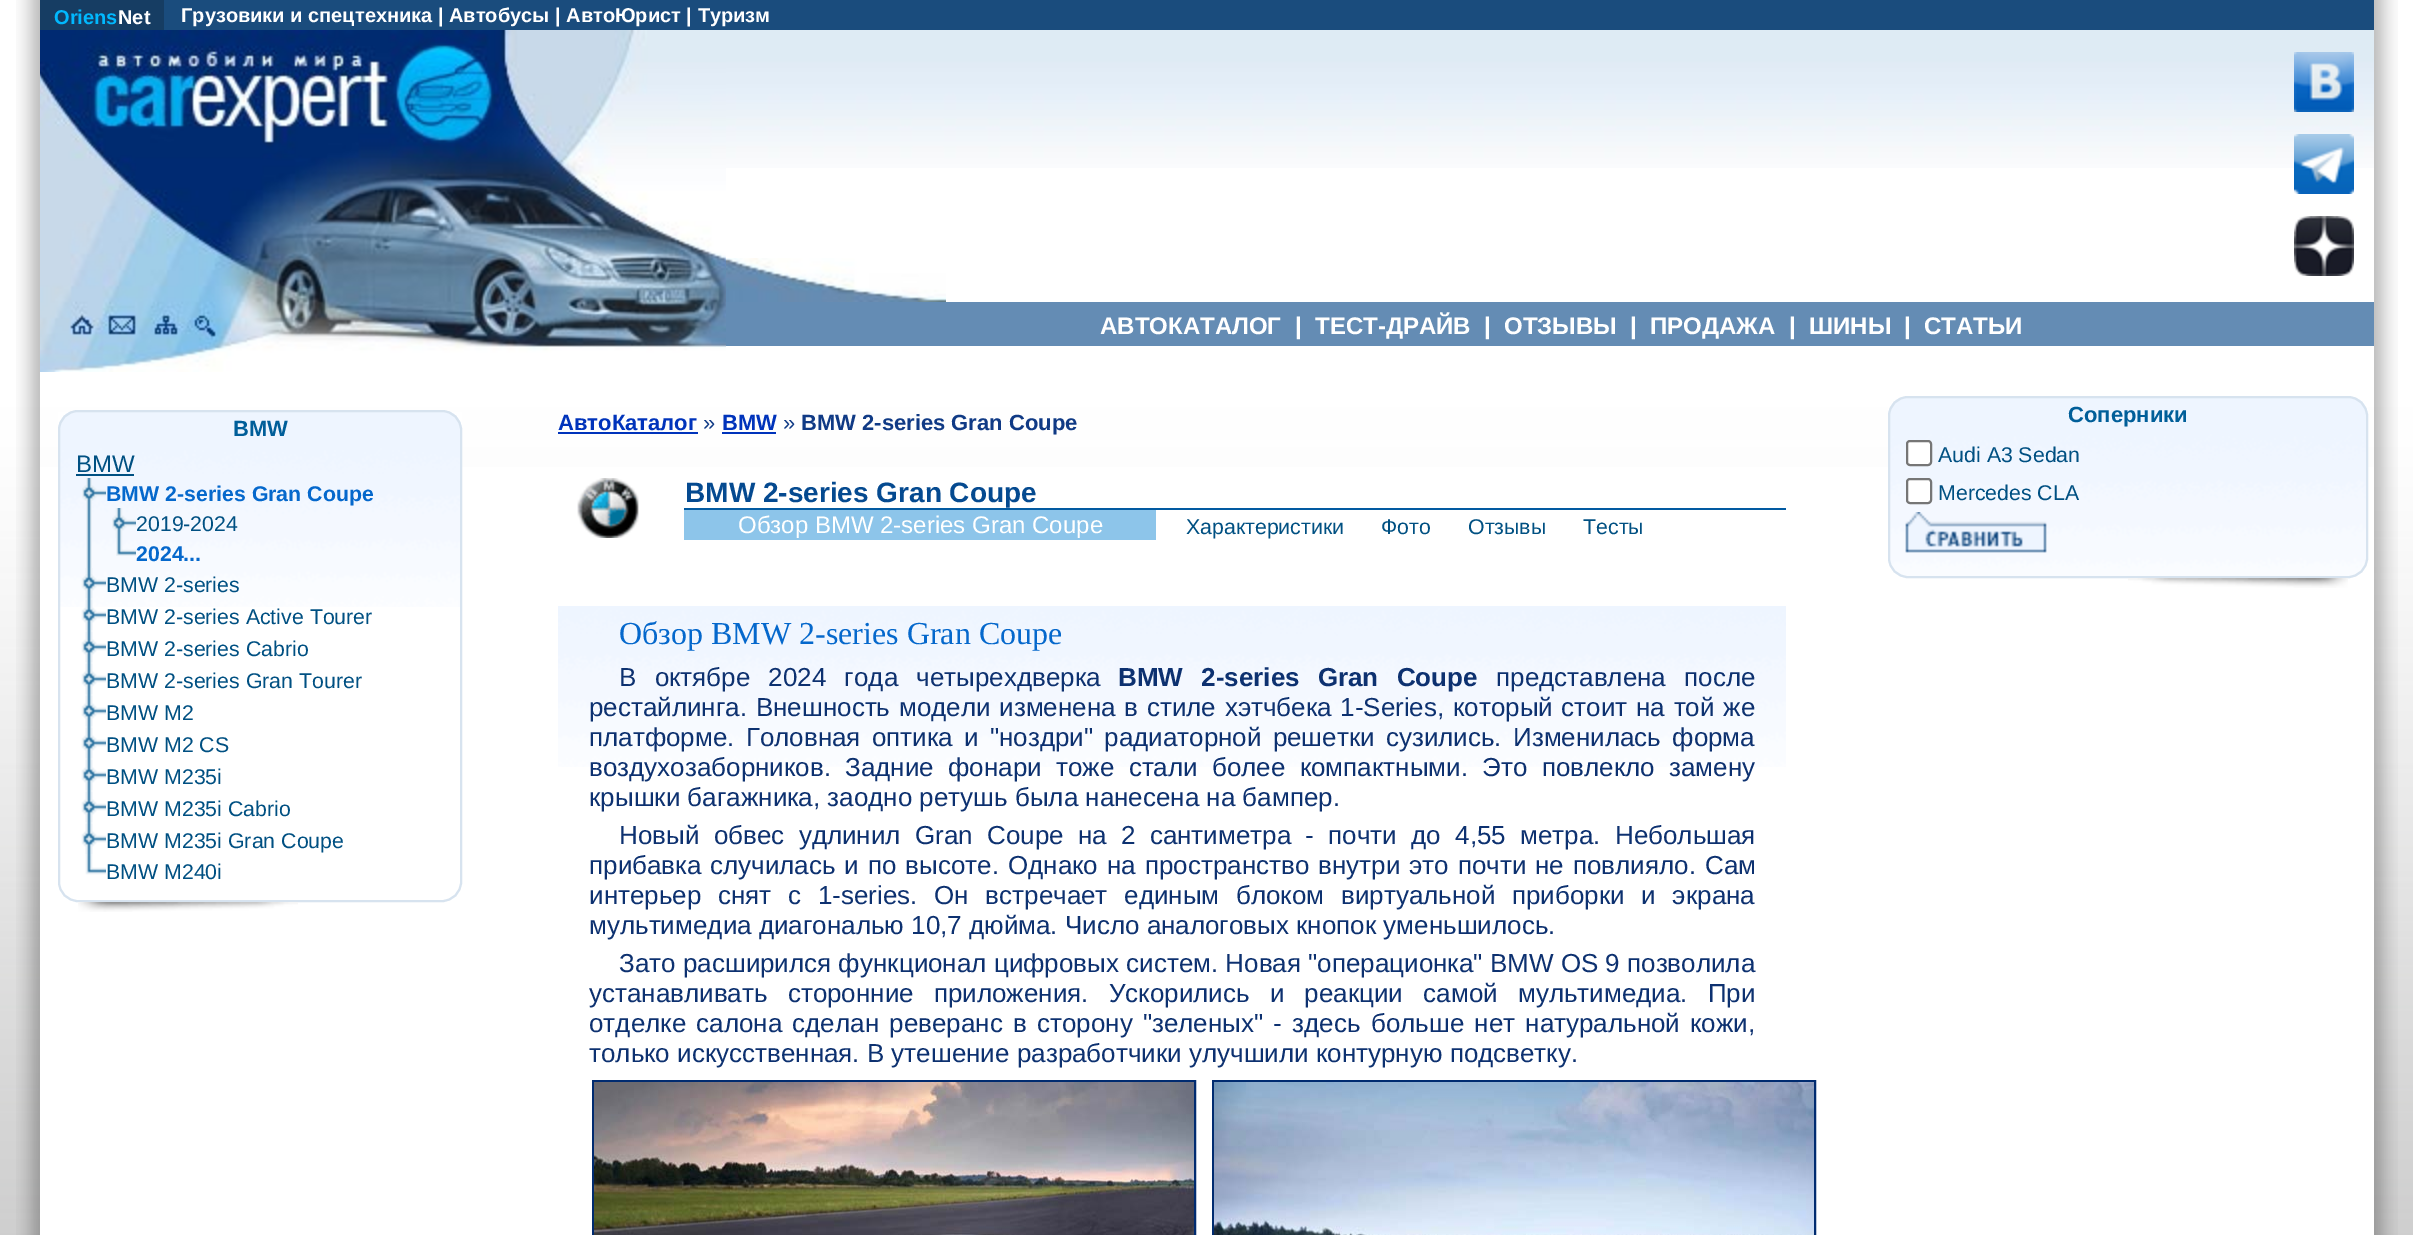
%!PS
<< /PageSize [2413 1235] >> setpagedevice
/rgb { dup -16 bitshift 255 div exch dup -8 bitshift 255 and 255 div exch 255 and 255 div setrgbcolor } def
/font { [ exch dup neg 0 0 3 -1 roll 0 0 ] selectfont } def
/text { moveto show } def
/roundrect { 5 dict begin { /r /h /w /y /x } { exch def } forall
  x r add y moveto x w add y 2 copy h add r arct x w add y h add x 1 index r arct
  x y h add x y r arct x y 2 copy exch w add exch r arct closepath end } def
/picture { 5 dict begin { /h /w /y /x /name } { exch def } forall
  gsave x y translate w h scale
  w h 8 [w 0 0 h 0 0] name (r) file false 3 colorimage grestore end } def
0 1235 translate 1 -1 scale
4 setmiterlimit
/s1 { /LiberationSans-Bold 20 font 16#01B8FE rgb } def
/s2 { /LiberationSans-Bold 20 font 16#FFFFFF rgb } def
/s3 { /LiberationSans-Bold 24 font 16#FFFFFF rgb } def
/s4 { /LiberationSans-Bold 22 font 16#005E99 rgb } def
/s5 { /LiberationSans-Regular 24 font 16#005082 rgb } def
/s6 { /LiberationSans-Bold 21.3 font 16#0568CC rgb } def
/s7 { /LiberationSans-Regular 21.3 font 16#005082 rgb } def
/s8 { /LiberationSans-Bold 22 font 16#0033BB rgb } def
/s9 { /LiberationSans-Regular 22 font 16#103A85 rgb } def
/s10 { /LiberationSans-Bold 22 font 16#103A85 rgb } def
/s11 { /LiberationSans-Bold 28 font 16#054A90 rgb } def
/s12 { /LiberationSans-Regular 24 font 16#FFFFFF rgb } def
/s13 { /LiberationSerif-Regular 32 font 16#0568CC rgb } def
/s14 { /LiberationSans-Regular 26 font 16#0D3170 rgb } def
16#FFFFFF rgb
0 0 2413 1235 rectfill
(pic1.raw) 0 0 2413 1235 picture
(pic2.raw) 16 0 24 1235 picture
(pic3.raw) 2374 0 24 1235 picture
40 467 2334 768 rectfill
16#1A4C7D rgb
164 0 2210 30 rectfill
16#163D63 rgb
40 0 124 30 rectfill
s1
(Oriens) 54 24 text
s2
(Net) 118 24 text
(Грузовики и спецтехника | Автобусы | АвтоЮрист | Туризм) 181 22 text
(pic4.raw) 40 30 686 342 picture
(pic5.raw) 726 30 1648 138 picture
(pic6.raw) 726 258 220 44 picture
(pic7.raw) 2294 52 60 60 picture
(pic8.raw) 2294 134 60 60 picture
(pic9.raw) 2294 216 60 60 picture
16#648CB4 rgb
726 302 1648 44 rectfill
s3
(АВТОКАТАЛОГ) 1100 334 text
(|) 1295 334 text
(ТЕСТ-ДРАЙВ) 1315 334 text
(|) 1484 334 text
(ОТЗЫВЫ) 1504 334 text
(|) 1630 334 text
(ПРОДАЖА) 1650 334 text
(|) 1789 334 text
(ШИНЫ) 1809 334 text
(|) 1904 334 text
(СТАТЬИ) 1924 334 text
(pic10.raw) 58 412 404 195 picture
16#D7E3EF rgb
2 setlinewidth
59 411 402 490 19 roundrect stroke
s4
(BMW) 233 436 text
s5
(BMW) 76 472 text
76 474 58 2 rectfill
(pic11.raw) 86 478 6 30 picture
(pic12.raw) 82 485 24 16 picture
s6
(BMW 2-series Gran Coupe) 106 501 text
(pic13.raw) 86 508 6 30 picture
(pic14.raw) 112 508 24 30 picture
s7
(2019-2024) 136 531 text
(pic15.raw) 86 538 6 30 picture
(pic16.raw) 116 538 20 18 picture
s6
(2024...) 136 561 text
(pic17.raw) 85 568 8 32 picture
(pic18.raw) 81 574 25 24 picture
s7
(BMW 2-series) 106 592 text
(pic19.raw) 85 600 8 32 picture
(pic20.raw) 81 600 25 30 picture
(BMW 2-series Active Tourer) 106 624 text
(pic21.raw) 85 632 8 32 picture
(pic22.raw) 81 632 25 30 picture
(BMW 2-series Cabrio) 106 656 text
(pic21.raw) 85 664 8 32 picture
(pic22.raw) 81 664 25 30 picture
(BMW 2-series Gran Tourer) 106 688 text
(pic21.raw) 85 696 8 32 picture
(pic22.raw) 81 696 25 30 picture
(BMW M2) 106 720 text
(pic21.raw) 85 728 8 32 picture
(pic22.raw) 81 728 25 30 picture
(BMW M2 CS) 106 752 text
(pic21.raw) 85 760 8 32 picture
(pic22.raw) 81 760 25 30 picture
(BMW M235i) 106 784 text
(pic21.raw) 85 792 8 32 picture
(pic22.raw) 81 792 25 30 picture
(BMW M235i Cabrio) 106 816 text
(pic21.raw) 85 824 8 32 picture
(pic22.raw) 81 824 25 30 picture
(BMW M235i Gran Coupe) 106 848 text
(pic23.raw) 85 856 21 19 picture
(BMW M240i) 106 879 text
(pic24.raw) 78 902 220 10 picture
s8
(АвтоКаталог) 558 430 text
558 432 140 2 rectfill
s9
(») 703 430 text
s8
(BMW) 722 430 text
722 432 54 2 rectfill
s9
(») 783 430 text
s10
(BMW 2-series Gran Coupe) 801 430 text
(pic25.raw) 577 478 62 60 picture
s11
(BMW 2-series Gran Coupe) 685 502 text
16#025AA1 rgb
684 508 1102 2 rectfill
16#8DC5EA rgb
684 510 472 30 rectfill
s12
(Обзор BMW 2-series Gran Coupe) 738 533 text
s7
(Характеристики) 1186 534 text
(Фото) 1381 534 text
(Отзывы) 1468 534 text
(Тесты) 1583 534 text
(pic26.raw) 558 606 1228 161 picture
s13
(Обзор BMW 2-series Gran Coupe) 619 644 text
/LiberationSans-Regular 26 font
16#0D3170 rgb
619 686 moveto 11 0 32 (В октябре 2024 года четырехдверка) widthshow
/LiberationSans-Bold 26 font
1118 686 moveto 11 0 32 (BMW 2-series Gran Coupe) widthshow
/LiberationSans-Regular 26 font
1496 686 moveto 11 0 32 (представлена после) widthshow
589 716 moveto 1.5 0 32 (рестайлинга. Внешность модели изменена в стиле хэтчбека 1-Series, который стоит на той же) widthshow
589 746 moveto 4 0 32 (платформе. Головная оптика и "ноздри" радиаторной решетки сузились. Изменилась форма) widthshow
589 776 moveto 7.1 0 32 (воздухозаборников. Задние фонари тоже стали более компактными. Это повлекло замену) widthshow
(крышки багажника, заодно ретушь была нанесена на бампер.) 589 806 text
619 844 moveto 7.1 0 32 (Новый обвес удлинил Gran Coupe на 2 сантиметра - почти до 4,55 метра. Небольшая) widthshow
589 874 moveto 1.75 0 32 (прибавка случилась и по высоте. Однако на пространство внутри это почти не повлияло. Сам) widthshow
589 904 moveto 9.5 0 32 (интерьер снят с 1-series. Он встречает единым блоком виртуальной приборки и экрана) widthshow
(мультимедиа диагональю 10,7 дюйма. Число аналоговых кнопок уменьшилось.) 589 934 text
(Зато расширился функционал цифровых систем. Новая "операционка" BMW OS 9 позволила) 619 972 text
589 1002 moveto 13 0 32 (устанавливать сторонние приложения. Ускорились и реакции самой мультимедиа. При) widthshow
589 1032 moveto 3 0 32 (отделке салона сделан реверанс в сторону "зеленых" - здесь больше нет натуральной кожи,) widthshow
(только искусственная. В утешение разработчики улучшили контурную подсветку.) 589 1062 text
16#002B70 rgb
593 1081 602 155 rectstroke
1213 1081 602 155 rectstroke
(pic27.raw) 594 1082 600 153 picture
(pic28.raw) 1214 1082 600 153 picture
(pic29.raw) 1888 398 480 180 picture
16#D7E3EF rgb
1889 397 478 180 19 roundrect stroke
s4
(Соперники) 2068 422 text
16#FFFFFF rgb
1907 441 24 24 3 roundrect gsave fill grestore
16#767676 rgb
stroke
s7
(Audi A3 Sedan) 1938 462 text
16#FFFFFF rgb
1907 479 24 24 3 roundrect gsave fill grestore
16#767676 rgb
stroke
s7
(Mercedes CLA) 1938 500 text
(pic30.raw) 1905 512 142 41 picture
(pic31.raw) 2128 578 220 10 picture
showpage
